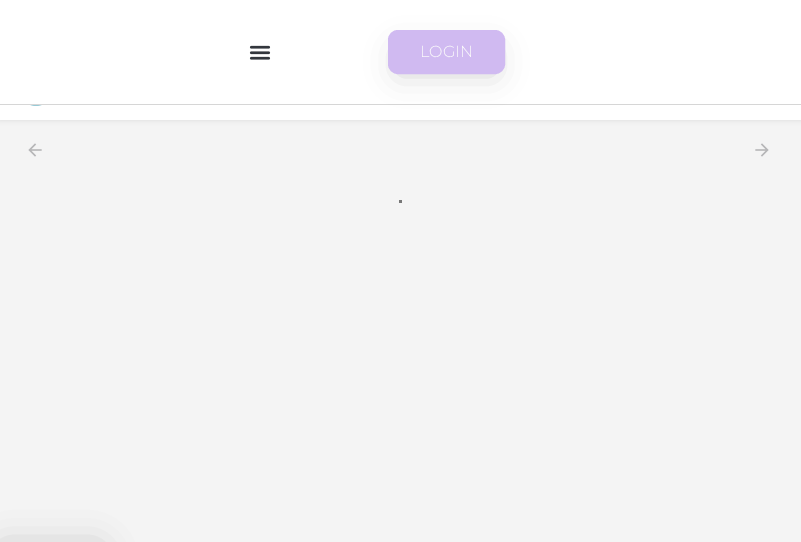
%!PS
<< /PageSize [801 542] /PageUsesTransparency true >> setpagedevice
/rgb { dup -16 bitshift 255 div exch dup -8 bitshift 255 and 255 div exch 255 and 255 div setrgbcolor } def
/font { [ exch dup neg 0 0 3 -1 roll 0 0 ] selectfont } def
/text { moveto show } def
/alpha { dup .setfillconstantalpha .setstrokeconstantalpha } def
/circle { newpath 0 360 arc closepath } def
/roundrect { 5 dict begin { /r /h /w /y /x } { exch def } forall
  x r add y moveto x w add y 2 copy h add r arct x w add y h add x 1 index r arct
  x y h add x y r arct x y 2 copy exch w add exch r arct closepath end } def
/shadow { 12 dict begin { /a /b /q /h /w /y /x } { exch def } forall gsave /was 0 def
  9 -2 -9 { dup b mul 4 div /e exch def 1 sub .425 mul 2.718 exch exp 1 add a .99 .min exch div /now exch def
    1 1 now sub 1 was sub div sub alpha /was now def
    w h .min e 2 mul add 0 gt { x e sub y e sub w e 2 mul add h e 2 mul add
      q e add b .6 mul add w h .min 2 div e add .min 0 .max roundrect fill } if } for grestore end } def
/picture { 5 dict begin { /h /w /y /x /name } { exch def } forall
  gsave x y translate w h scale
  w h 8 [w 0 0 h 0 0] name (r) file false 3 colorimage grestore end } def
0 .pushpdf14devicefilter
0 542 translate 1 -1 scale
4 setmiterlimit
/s1 { /Montserrat-Light 16 font 16#FBFBFB rgb } def
16#F4F4F4 rgb
0 0 801 542 rectfill
16#000000 rgb
0 61 801 60 0 2 0.07 shadow
16#FFFFFF rgb
0 105 801 15 rectfill
16#98CAD6 rgb
36 90 16 circle fill
16#FFFFFF rgb
0 0 801 104 rectfill
16#D6D6D6 rgb
0 104 801 1 rectfill
(pic1.raw) 249 45 22 15 picture
16#000000 rgb
397 49 99 26 1 15 0.16 shadow
16#D0BAF1 rgb
389 31 115 42 9 roundrect gsave fill grestore
2 setlinewidth
stroke
s1
(LOGIN) 420 57 text
(pic2.raw) 28 143 14 14 picture
(pic3.raw) 755 143 14 14 picture
gsave
387 200 14 28 rectclip
16#777777 rgb
3 setlinewidth
399.5 201.5 moveto 416 200 418 225 401.5 226.5 curveto stroke
grestore
gsave
399 200 3 28 rectclip
16#777777 rgb
3 setlinewidth
392 223 moveto 389 220 388 215.5 388.5 211.5 curveto 389.5 208.5 391 205.5 394 203.5 curveto 406 195 419 212.5 409 223 curveto stroke
grestore
gsave
401 200 14 28 rectclip
16#777777 rgb
3 setlinewidth
399.5 226.5 moveto 383 225 385 200 401.5 201.5 curveto stroke
grestore
16#000000 rgb
0 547 102 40 5 16.5 0.2 shadow
.poppdf14devicefilter showpage
